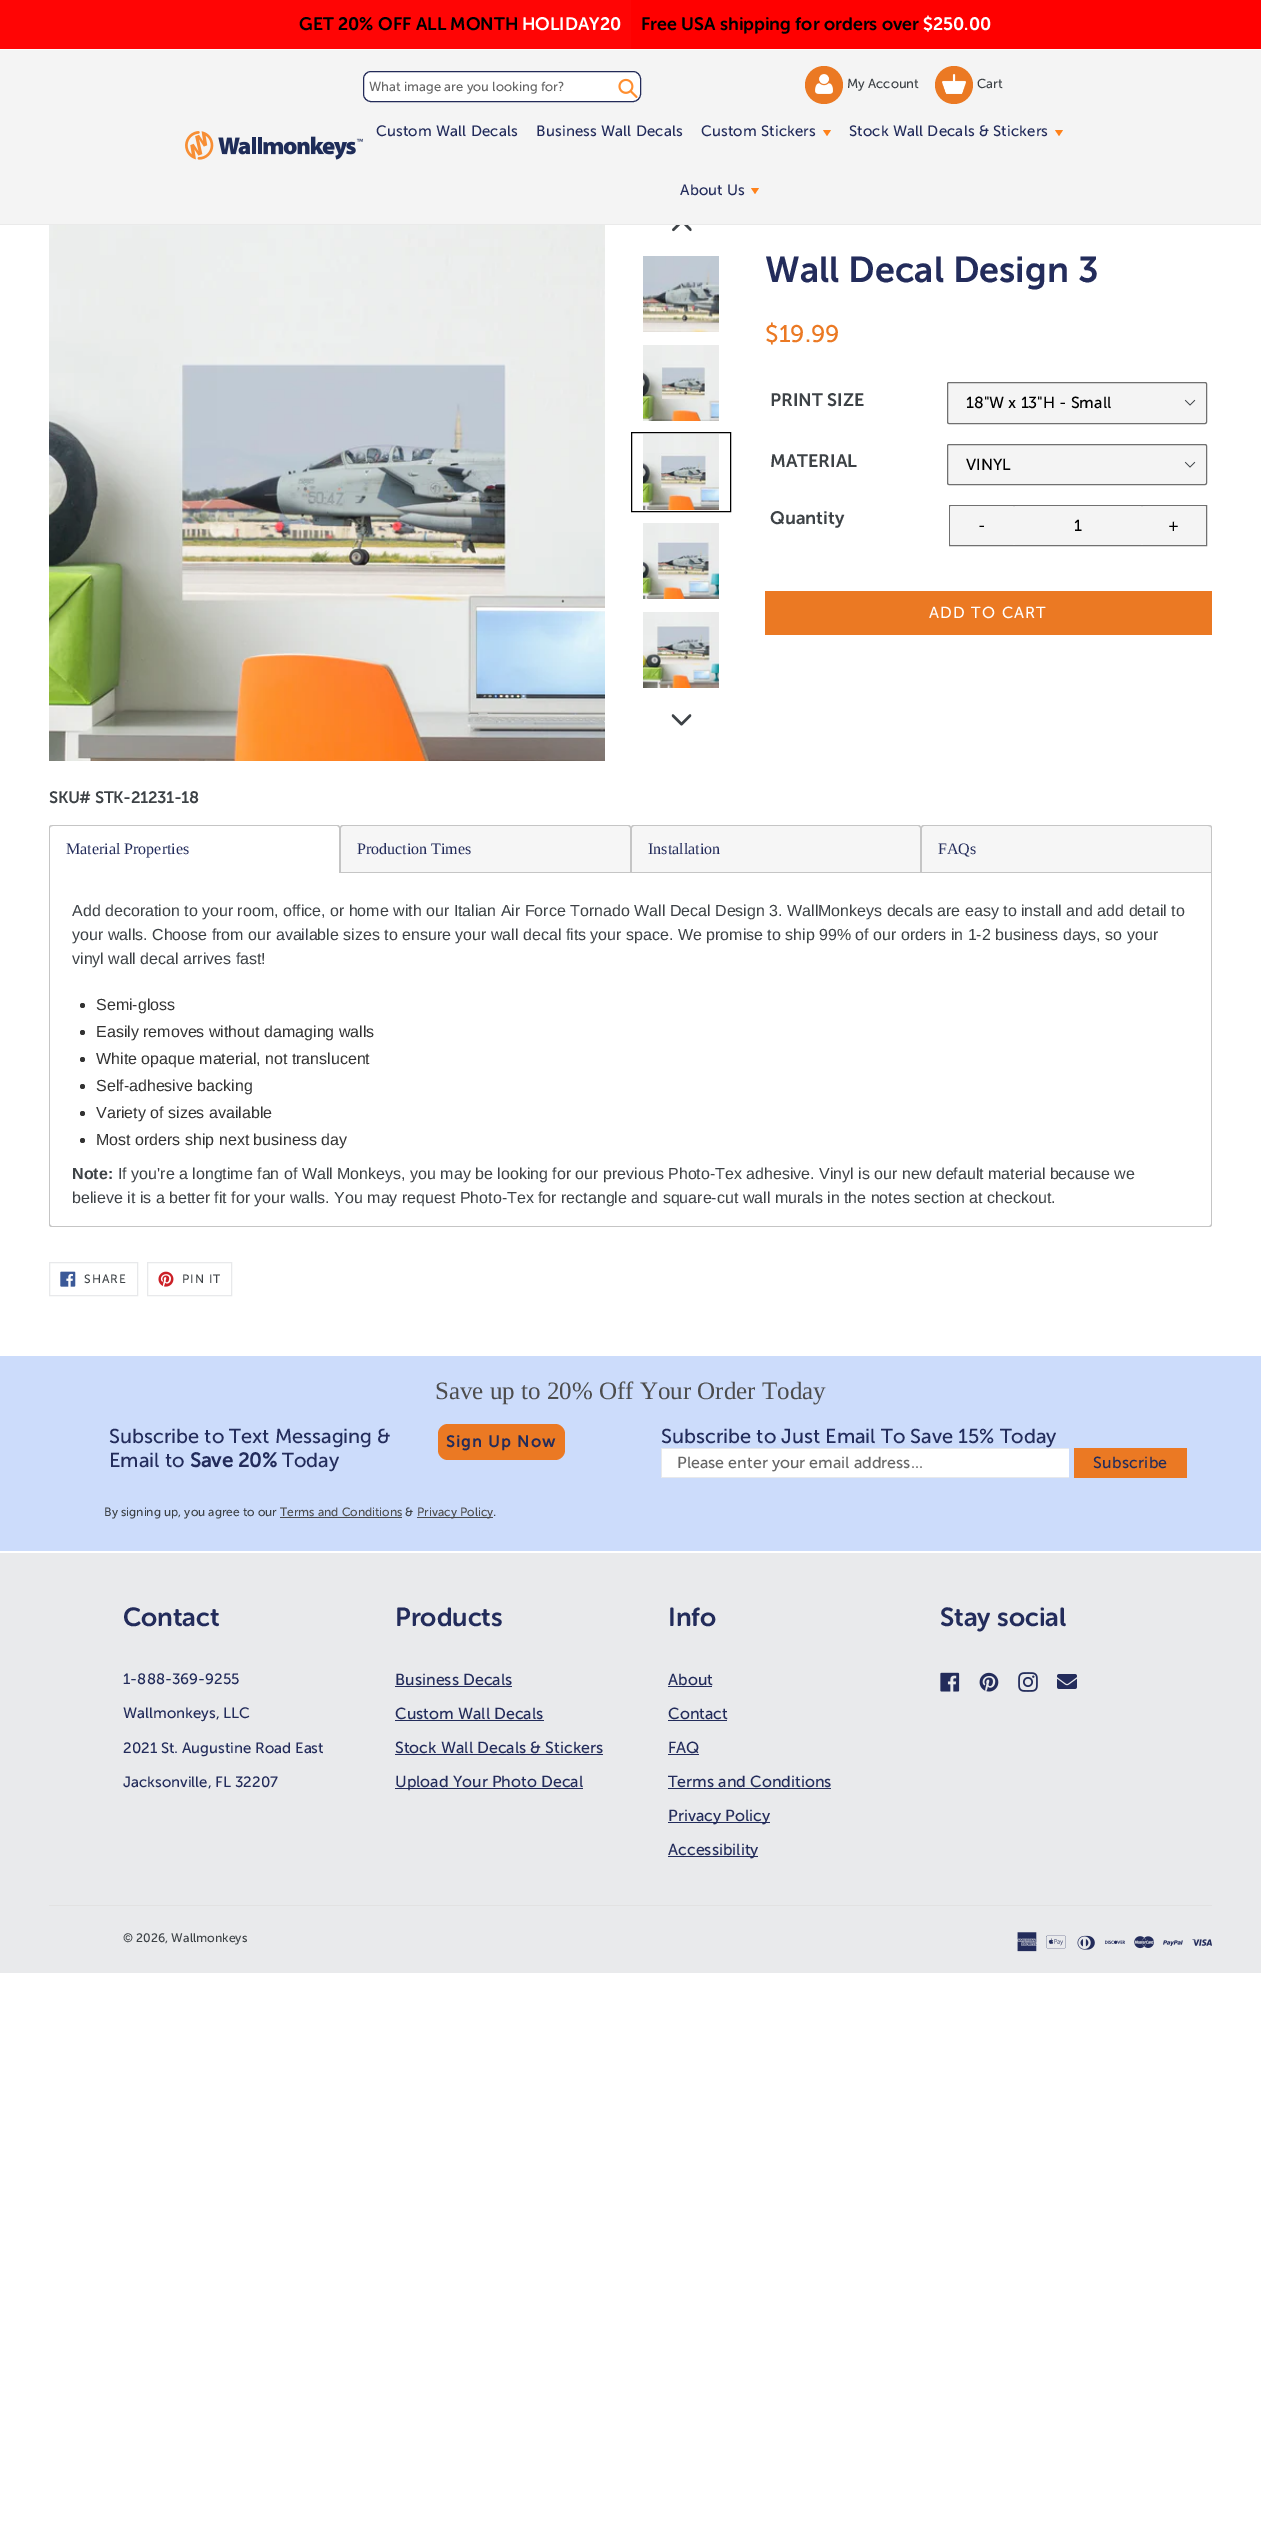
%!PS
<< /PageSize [1261 2548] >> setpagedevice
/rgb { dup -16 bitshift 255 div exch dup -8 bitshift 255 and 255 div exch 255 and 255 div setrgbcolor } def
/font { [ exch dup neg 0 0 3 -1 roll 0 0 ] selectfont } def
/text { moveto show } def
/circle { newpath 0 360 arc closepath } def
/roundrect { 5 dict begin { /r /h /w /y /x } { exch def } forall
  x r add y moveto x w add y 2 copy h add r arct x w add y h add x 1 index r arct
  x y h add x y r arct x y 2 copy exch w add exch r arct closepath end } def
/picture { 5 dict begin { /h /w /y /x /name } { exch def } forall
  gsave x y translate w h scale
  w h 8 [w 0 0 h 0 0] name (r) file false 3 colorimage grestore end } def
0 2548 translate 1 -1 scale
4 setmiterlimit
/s1 { /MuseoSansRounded-SemiBold 18 font 16#000000 rgb } def
/s2 { /MuseoSansRounded-SemiBold 18 font 16#FFFFFF rgb } def
/s3 { /MuseoSans-Regular 13 font 16#666666 rgb } def
/s4 { /MuseoSans-Regular 13 font 16#3D4246 rgb } def
/s5 { /MuseoSans-SemiBold 36 font 16#232C5B rgb } def
/s6 { /MuseoSans-Regular 24 font 16#EB7923 rgb } def
/s7 { /MuseoSans-SemiBold 18 font 16#3D4246 rgb } def
/s8 { /MuseoSans-Regular 16 font 16#000000 rgb } def
/s9 { /MuseoSans-Bold 16 font 16#3D4246 rgb } def
/s10 { /LiberationSerif-Regular 16 font 16#232C5B rgb } def
/s11 { /LiberationSans-Regular 16 font 16#3D4246 rgb } def
/s12 { /LiberationSans-Regular 16 font 16#333333 rgb } def
/s13 { /LiberationSans-Bold 16 font 16#3D4246 rgb } def
/s14 { /LiberationSerif-Regular 25 font 16#4D4D4D rgb } def
/s15 { /MuseoSans-Regular 20 font 16#232C5B rgb } def
/s16 { /MuseoSans-Bold 20 font 16#232C5B rgb } def
/s17 { /MuseoSans-Regular 16 font 16#666666 rgb } def
/s18 { /MuseoSans-Regular 12 font 16#3D4246 rgb } def
/s19 { /MuseoSans-Regular 12 font 16#4D4D4D rgb } def
/s20 { /MuseoSansRounded-SemiBold 26 font 16#232C5B rgb } def
/s21 { /MuseoSans-Regular 15 font 16#232C5B rgb } def
/s22 { /MuseoSans-Regular 16 font 16#232C5B rgb } def
/s23 { /MuseoSans-Regular 12.25 font 16#3D4246 rgb } def
16#FFFFFF rgb
0 0 1261 2548 rectfill
16#FF0505 rgb
0 0 631 49 rectfill
s1
(GET 20% OFF ALL MONTH) 299 30 text
s2
(HOLIDAY20) 522 30 text
16#FF0000 rgb
631 0 630 49 rectfill
s1
(Free USA shipping for orders over) 641 30 text
s2
($250.00) 923 30 text
16#F4F4F4 rgb
0 50 1261 174 rectfill
16#EAEAEA rgb
0 224 1261 1 rectfill
(pic1.raw) 185 131 178 29 picture
16#FFFFFF rgb
363.5 71.5 277 30 7.5 roundrect gsave fill grestore
16#232B59 rgb
stroke
s3
(What image are you looking for?) 369 91 text
(pic2.raw) 618 78 20 20 picture
16#EB7923 rgb
824 85 19 circle fill
(pic3.raw) 815 74 18 20 picture
s4
(My Account) 847 88 text
16#EB7923 rgb
954 85 19 circle fill
(pic4.raw) 942 74 24 20 picture
s4
(Cart) 977 88 text
/MuseoSans-Regular 15 font
16#232C5B rgb
376 136 moveto 0.15 0 (Custom Wall Decals) ashow
536 136 moveto 0.15 0 (Business Wall Decals) ashow
701 136 moveto 0.15 0 (Custom Stickers) ashow
16#FF821B rgb
823 130 moveto 831 130 lineto 827 136 lineto closepath fill
16#232C5B rgb
849 136 moveto 0.15 0 (Stock Wall Decals & Stickers) ashow
16#FF821B rgb
1055 130 moveto 1063 130 lineto 1059 136 lineto closepath fill
16#232C5B rgb
680 195 moveto 0.15 0 (About Us) ashow
16#FF821B rgb
751 188 moveto 759 188 lineto 755 194 lineto closepath fill
(pic5.raw) 49 225 556 536 picture
(pic6.raw) 672 225 20 7 picture
(pic7.raw) 643 256 76 76 picture
(pic8.raw) 643 345 76 76 picture
16#000000 rgb
631.5 432.5 99 79 rectstroke
(pic9.raw) 643 434 76 76 picture
(pic10.raw) 643 523 76 76 picture
(pic11.raw) 643 612 76 76 picture
(pic12.raw) 671 714 21 12 picture
s5
(Wall Decal Design 3) 765 282 text
s6
($19.99) 765 342 text
s7
(PRINT SIZE) 770 406 text
16#F4F4F4 rgb
947 382 260 42 2 roundrect fill
(pic13.raw) 1184 399 12 7 picture
16#707070 rgb
947.5 382.5 259 41 1.5 roundrect stroke
s8
(18"W x 13"H - Small) 966 408 text
s7
(MATERIAL) 770 467 text
16#F4F4F4 rgb
947 444 260 41 2 roundrect fill
(pic13.raw) 1184 461 12 7 picture
16#707070 rgb
947.5 444.5 259 40 1.5 roundrect stroke
s8
(VINYL) 966 470 text
s7
(Quantity) 770 524 text
16#707070 rgb
949.5 505.5 257 40 rectstroke
16#F4F4F4 rgb
950 506 64 39 2 roundrect fill
s8
(-) 978 531 text
16#F4F4F4 rgb
1014 506 128 39 2 roundrect fill
s8
(1) 1074 531 text
16#F4F4F4 rgb
1142 506 64 39 2 roundrect fill
s8
(+) 1168 531 text
16#EB7923 rgb
765 591 447 44 rectfill
/MuseoSansRounded-Regular 16 font
16#FFFFFF rgb
929 618 moveto 1.25 0 (ADD TO CART) ashow
s9
(SKU# STK-21231-18) 49 803 text
16#C5C5C5 rgb
52 825 moveto 1209 825 lineto 1211 825 1212 826 1212 828 curveto 1212 1224 lineto 1212 1226 1211 1227 1209 1227 curveto 52 1227 lineto 50 1227 49 1226 49 1224 curveto 49 828 lineto 49 826 50 825 52 825 curveto closepath 52 825 moveto 1209 825 lineto 1210 825 1211 826 1211 828 curveto 1211 1224 lineto 1211 1225 1210 1226 1209 1226 curveto 52 1226 lineto 51 1226 50 1225 50 1224 curveto 50 828 lineto 50 826 51 825 52 825 curveto closepath eofill
16#FFFFFF rgb
50 825 1161 48 3 roundrect fill
53 825 moveto 337 825 lineto 338.5 825 340 826.5 340 828 curveto 340 873 lineto 50 873 lineto 50 828 lineto 50 826.5 51.5 825 53 825 curveto closepath fill
16#C5C5C5 rgb
53 825 moveto 337 825 lineto 339 825 340 826 340 828 curveto 340 873 lineto 50 873 lineto 50 828 lineto 50 826 51 825 53 825 curveto closepath 53 826 moveto 337 826 lineto 338 826 339 827 339 828 curveto 339 873 lineto 50 873 lineto 50 828 lineto 50 827 51 826 53 826 curveto closepath eofill
s10
(Material Properties) 66 854 text
16#F6F6F6 rgb
343 826 moveto 628 826 lineto 629 826 630 827 630 828 curveto 630 873 lineto 341 873 lineto 341 828 lineto 341 827 342 826 343 826 curveto closepath fill
16#C5C5C5 rgb
343 825 moveto 628 825 lineto 630 825 631 826 631 828 curveto 631 873 lineto 340 873 lineto 340 828 lineto 340 826 341 825 343 825 curveto closepath 343 826 moveto 628 826 lineto 629 826 630 827 630 828 curveto 630 873 lineto 341 873 lineto 341 828 lineto 341 827 342 826 343 826 curveto closepath eofill
341 872 289 1 rectfill
s10
(Production Times) 357 854 text
16#F6F6F6 rgb
634 826 moveto 918 826 lineto 919 826 920 827 920 828 curveto 920 873 lineto 632 873 lineto 632 828 lineto 632 827 633 826 634 826 curveto closepath fill
16#C5C5C5 rgb
634 825 moveto 918 825 lineto 920 825 921 826 921 828 curveto 921 873 lineto 631 873 lineto 631 828 lineto 631 826 632 825 634 825 curveto closepath 634 826 moveto 918 826 lineto 919 826 920 827 920 828 curveto 920 873 lineto 632 873 lineto 632 828 lineto 632 827 633 826 634 826 curveto closepath eofill
632 872 288 1 rectfill
s10
(Installation) 648 854 text
16#F6F6F6 rgb
924 825 moveto 1208 825 lineto 1209.5 825 1211 826.5 1211 828 curveto 1211 873 lineto 921 873 lineto 921 828 lineto 921 826.5 922.5 825 924 825 curveto closepath fill
16#C5C5C5 rgb
924 825 moveto 1208 825 lineto 1210 825 1211 826 1211 828 curveto 1211 873 lineto 921 873 lineto 921 828 lineto 921 826 922 825 924 825 curveto closepath 924 826 moveto 1208 826 lineto 1210 826 1211 827 1211 828 curveto 1211 873 lineto 922 873 lineto 922 828 lineto 922 827 923 826 924 826 curveto closepath eofill
922 872 289 1 rectfill
s10
(FAQs) 938 854 text
s11
(Add decoration to your room, office, or home with our Italian Air Force Tornado Wall Decal Design 3. WallMonkeys decals are easy to install and add detail to) 72 916 text
(your walls. Choose from our available sizes to ensure your wall decal fits your space. We promise to ship 99% of our orders in 1-2 business days, so your) 72 940 text
(vinyl wall decal arrives fast!) 72 964 text
16#333333 rgb
82.5 1005.5 2.5 circle fill
(Semi-gloss) 96 1010 text
82.5 1032.5 2.5 circle fill
(Easily removes without damaging walls) 96 1037 text
82.5 1059.5 2.5 circle fill
(White opaque material, not translucent) 96 1064 text
82.5 1086.5 2.5 circle fill
(Self-adhesive backing) 96 1091 text
82.5 1113.5 2.5 circle fill
(Variety of sizes available) 96 1118 text
82.5 1140.5 2.5 circle fill
(Most orders ship next business day) 96 1145 text
s13
(Note:) 72 1179 text
s11
(If you're a longtime fan of Wall Monkeys, you may be looking for our previous Photo-Tex adhesive. Vinyl is our new default material because we) 118 1179 text
(believe it is a better fit for your walls. You may request Photo-Tex for rectangle and square-cut wall murals in the notes section at checkout.) 72 1203 text
16#E8E9EB rgb
49.5 1262.5 88 33 rectstroke
(pic14.raw) 60 1271 16 16 picture
/MuseoSans-Regular 12 font
16#3D4246 rgb
84 1283 moveto 1 0 (SHARE) ashow
16#E8E9EB rgb
147.5 1262.5 84 33 rectstroke
(pic15.raw) 158 1271 16 16 picture
16#3D4246 rgb
182 1283 moveto 1 0 (PIN IT) ashow
16#CCDCFB rgb
0 1356 1261 195 rectfill
s14
(Save up to 20% Off Your Order Today) 435 1399 text
s15
(Subscribe to Text Messaging &) 109 1443 text
(Email to) 109 1467 text
s16
(Save 20%) 190 1467 text
s15
(Today) 282 1467 text
16#EB7923 rgb
438 1424 127 36 10 roundrect fill
/MuseoSans-Bold 16 font
16#232C5B rgb
446 1447 moveto 1.25 0 (Sign Up Now) ashow
s15
(Subscribe to Just Email To Save 15% Today) 661 1443 text
16#FFFFFF rgb
662 1449 407 28 rectfill
16#E8E9EB rgb
661 1448 408 1 rectfill
661 1477 408 1 rectfill
661 1448 1 30 rectfill
s17
(Please enter your email address...) 677 1468 text
16#EB7923 rgb
1074 1448 113 30 rectfill
16#232C5B rgb
1093 1468 moveto 0.25 0 (Subscribe) ashow
s18
(By signing up, you agree to our) 104 1516 text
s19
(Terms and Conditions) 280 1516 text
280 1517 122 1 rectfill
s18
(&) 405 1516 text
16#4D4D4D rgb
417 1517 76 1 rectfill
(Privacy Policy) 417 1516 text
s18
(.) 493 1516 text
16#E9EAEC rgb
0 1553 1261 420 rectfill
16#E2E2E2 rgb
49 1905 1163 1 rectfill
s20
(Contact) 123 1626 text
s21
(1-888-369-9255) 123 1684 text
(Wallmonkeys, LLC) 123 1718 text
(2021 St. Augustine Road East) 123 1753 text
(Jacksonville, FL 32207) 123 1787 text
s20
(Products) 395 1626 text
s22
(Business Decals) 395 1685 text
395 1686 117 1 rectfill
(Custom Wall Decals) 395 1719 text
395 1720 149 1 rectfill
(Stock Wall Decals & Stickers) 395 1753 text
395 1754 208 1 rectfill
395 1788 188 1 rectfill
(Upload Your Photo Decal) 395 1787 text
s20
(Info) 668 1626 text
s22
(About) 668 1685 text
668 1686 44 1 rectfill
(Contact) 668 1719 text
668 1720 59 1 rectfill
(FAQ) 668 1753 text
668 1754 31 1 rectfill
(Terms and Conditions) 668 1787 text
668 1788 163 1 rectfill
668 1822 102 1 rectfill
(Privacy Policy) 668 1821 text
668 1856 90 1 rectfill
(Accessibility) 668 1855 text
s20
(Stay social) 940 1626 text
(pic16.raw) 940 1672 20 20 picture
(pic17.raw) 979 1672 20 20 picture
(pic18.raw) 1018 1672 20 20 picture
(pic19.raw) 1057 1674 20 15 picture
s23
(© 2026, Wallmonkeys) 123 1942 text
(pic20.raw) 1017 1932 20 20 picture
(pic21.raw) 1046 1935 20 14 picture
(pic22.raw) 1077 1935 18 15 picture
(pic23.raw) 1105 1940 20 4 picture
(pic24.raw) 1134 1936 20 13 picture
(pic25.raw) 1163 1940 20 6 picture
(pic26.raw) 1192 1939 20 7 picture
showpage
